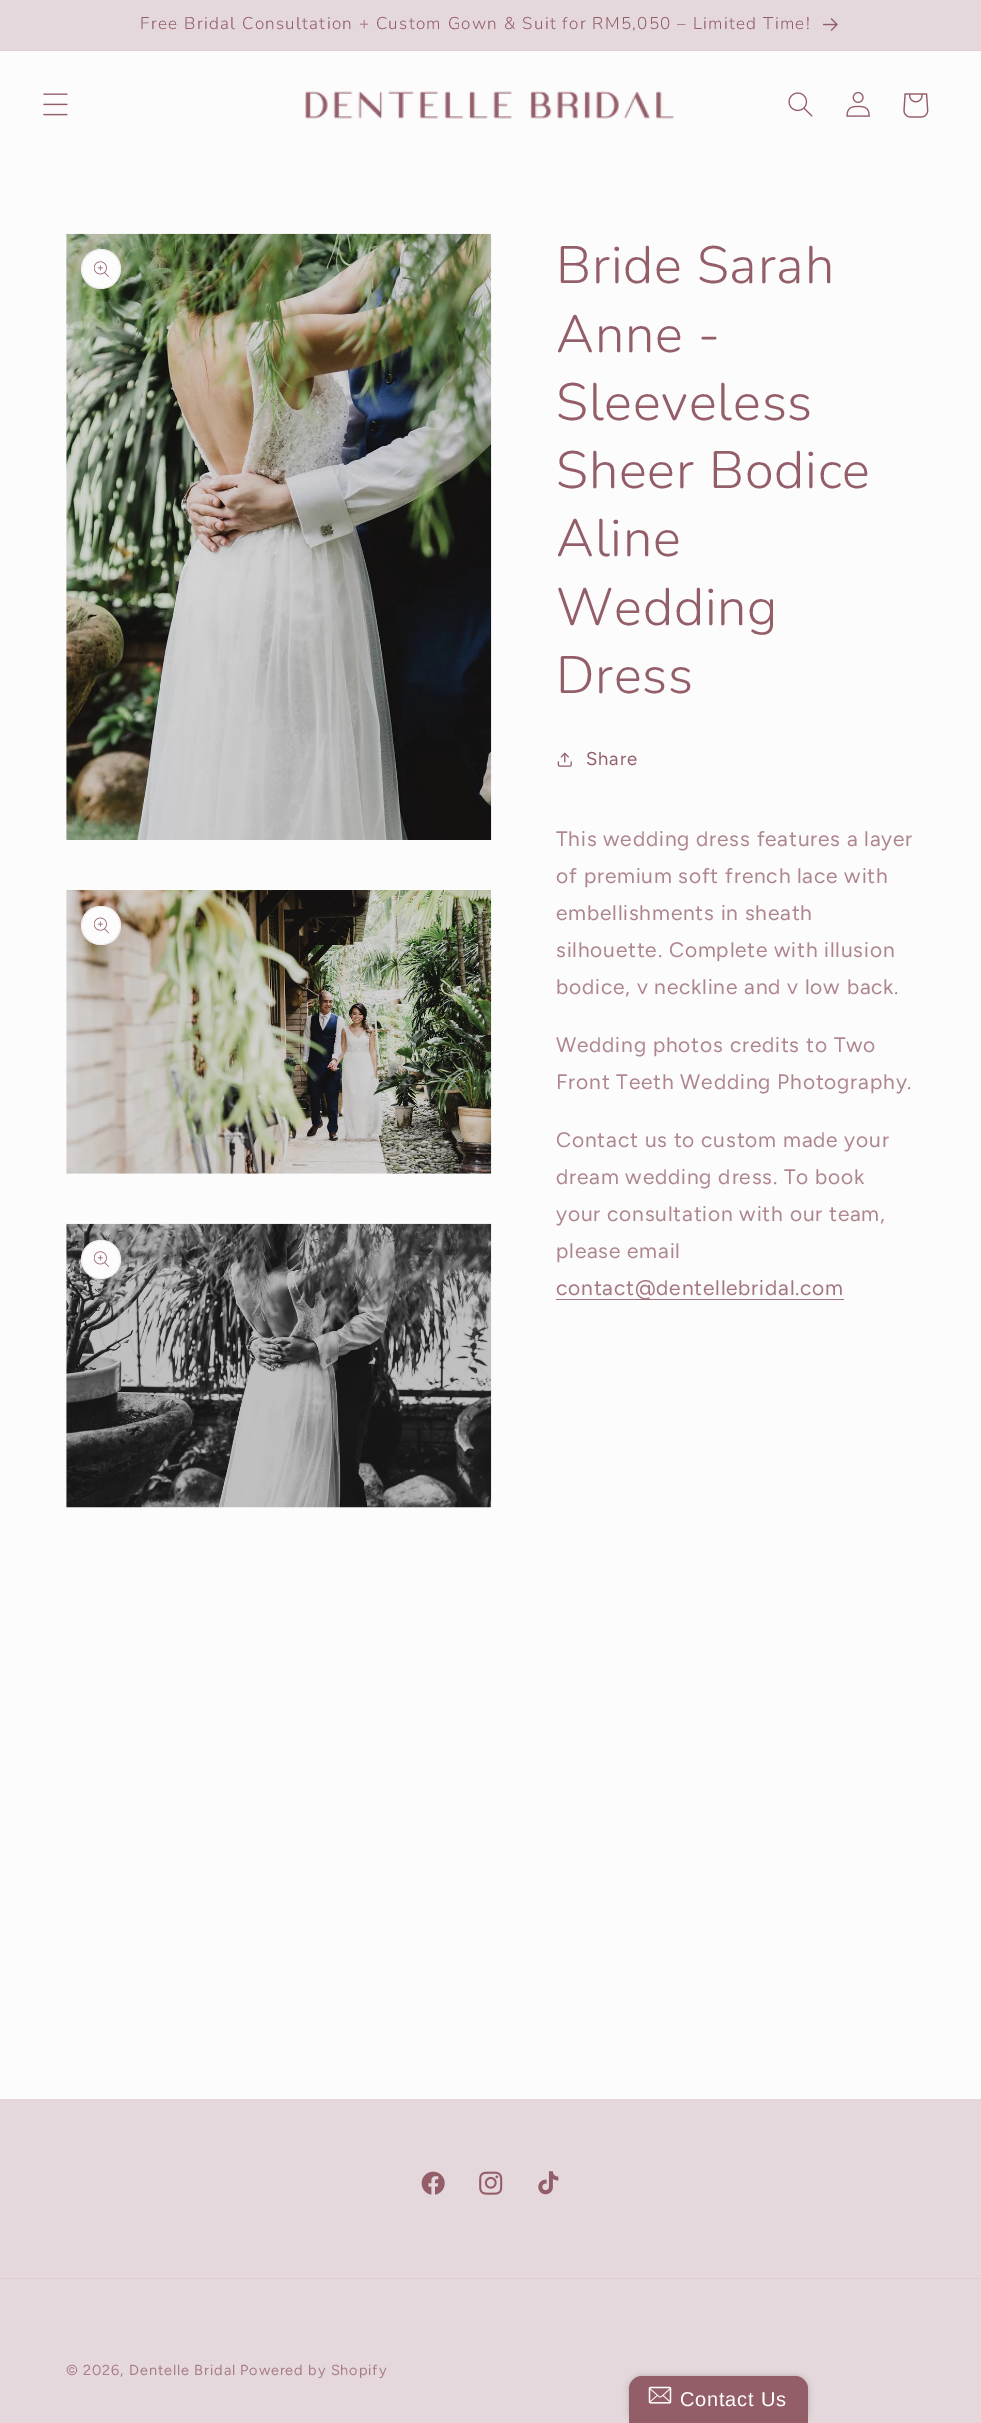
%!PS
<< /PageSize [981 2423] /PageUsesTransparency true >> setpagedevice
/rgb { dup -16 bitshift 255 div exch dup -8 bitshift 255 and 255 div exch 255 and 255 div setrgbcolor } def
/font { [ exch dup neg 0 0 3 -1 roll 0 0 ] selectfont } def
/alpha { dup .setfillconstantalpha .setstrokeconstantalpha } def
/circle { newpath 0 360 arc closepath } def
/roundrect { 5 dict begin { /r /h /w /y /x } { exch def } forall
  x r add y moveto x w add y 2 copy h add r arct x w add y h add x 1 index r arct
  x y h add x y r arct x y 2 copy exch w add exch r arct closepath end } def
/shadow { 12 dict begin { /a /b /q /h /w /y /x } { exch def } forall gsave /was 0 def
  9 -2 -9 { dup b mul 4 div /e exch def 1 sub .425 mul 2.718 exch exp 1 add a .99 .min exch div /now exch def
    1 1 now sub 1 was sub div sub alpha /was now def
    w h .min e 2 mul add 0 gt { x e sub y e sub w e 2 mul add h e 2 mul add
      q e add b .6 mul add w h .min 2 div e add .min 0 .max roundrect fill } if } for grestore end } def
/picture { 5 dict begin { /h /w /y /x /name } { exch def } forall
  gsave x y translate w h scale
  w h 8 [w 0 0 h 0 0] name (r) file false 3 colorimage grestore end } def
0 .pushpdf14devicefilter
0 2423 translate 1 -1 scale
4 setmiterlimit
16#FCFCFC rgb
0 0 981 2423 rectfill
16#E4D8DC rgb
0 0 981 50 rectfill
16#DECED3 rgb
0 50 981 1 rectfill
/Nunito-Light 17.05 font
16#945E69 rgb
140 29 moveto 1.3 0 (Free Bridal Consultation + Custom Gown & Suit for RM5,050 – Limited Time!) ashow
(pic1.raw) 823 18 15 13 picture
(pic2.raw) 43 93 25 23 picture
(pic3.raw) 305 91 369 28 picture
(pic4.raw) 788 92 25 25 picture
(pic5.raw) 846 91 24 26 picture
(pic6.raw) 903 93 26 25 picture
(pic7.raw) 66 233 426 607 picture
16#FCFCFC rgb
101 269 20 circle fill
0.1 alpha
16#945E69 rgb
101 269 19.5 circle stroke
1 alpha
(pic8.raw) 94 261 15 16 picture
(pic9.raw) 66 890 426 284 picture
16#FCFCFC rgb
81 906 40 39 19.5 roundrect fill
0.1 alpha
16#945E69 rgb
81.5 906.5 39 38 19 roundrect stroke
1 alpha
(pic10.raw) 94 917 15 17 picture
(pic11.raw) 66 1223 426 285 picture
16#FCFCFC rgb
81 1240 40 39 19.5 roundrect fill
0.1 alpha
16#945E69 rgb
81.5 1240.5 39 38 19 roundrect stroke
1 alpha
(pic8.raw) 94 1251 15 16 picture
/Nunito-Light 52.5 font
556 283 moveto 0.8 0 (Bride Sarah) ashow
556 352 moveto 0.8 0 (Anne -) ashow
556 420 moveto 0.8 0 (Sleeveless) ashow
556 488 moveto 0.8 0 (Sheer Bodice) ashow
556 556 moveto 0.8 0 (Aline) ashow
556 625 moveto 0.8 0 (Wedding) ashow
556 693 moveto 0.8 0 (Dress) ashow
(pic12.raw) 557 752 15 15 picture
/Figtree-Regular 18.5 font
586 765 moveto 0.8 0 (Share) ashow
/Figtree-Regular 21 font
16#AE868E rgb
556 846 moveto 0.8 0 (This wedding dress features a layer) ashow
556 883 moveto 0.8 0 (of premium soft french lace with) ashow
556 920 moveto 0.8 0 (embellishments in sheath) ashow
556 957 moveto 0.8 0 (silhouette. Complete with illusion) ashow
556 994 moveto 0.8 0 (bodice, v neckline and v low back.) ashow
556 1052 moveto 0.8 0 (Wedding photos credits to Two) ashow
556 1089 moveto 0.8 0 (Front Teeth Wedding Photography.) ashow
556 1147 moveto 0.8 0 (Contact us to custom made your) ashow
556 1184 moveto 0.8 0 (dream wedding dress. To book) ashow
556 1221 moveto 0.8 0 (your consultation with our team,) ashow
556 1258 moveto 0.8 0 (please email) ashow
16#A4767F rgb
556 1299 288 1 rectfill
556 1295 moveto 0.8 0 (contact@dentellebridal.com) ashow
16#E4D8DC rgb
0 2099 981 324 rectfill
(pic13.raw) 421 2171 24 24 picture
(pic14.raw) 479 2171 24 24 picture
(pic15.raw) 538 2171 21 24 picture
16#DECED3 rgb
0 2278 981 1 rectfill
/Figtree-Regular 14.5 font
16#A87D86 rgb
66 2375 moveto 0.9 0 (© 2026, Dentelle Bridal) ashow
240 2375 moveto 0.9 0 (Powered by Shopify) ashow
16#000000 rgb
629 2376 179 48 13 3 0.2 shadow
16#945E69 rgb
642 2376 moveto 795 2376 lineto 802 2376 808 2382 808 2389 curveto 808 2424 lineto 629 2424 lineto 629 2389 lineto 629 2382 635 2376 642 2376 curveto closepath fill
(pic16.raw) 648 2386 24 18 picture
/LiberationSans-Regular 20 font
16#FFFFFF rgb
680 2406 moveto 0.8 0 (Contact Us) ashow
.poppdf14devicefilter showpage
